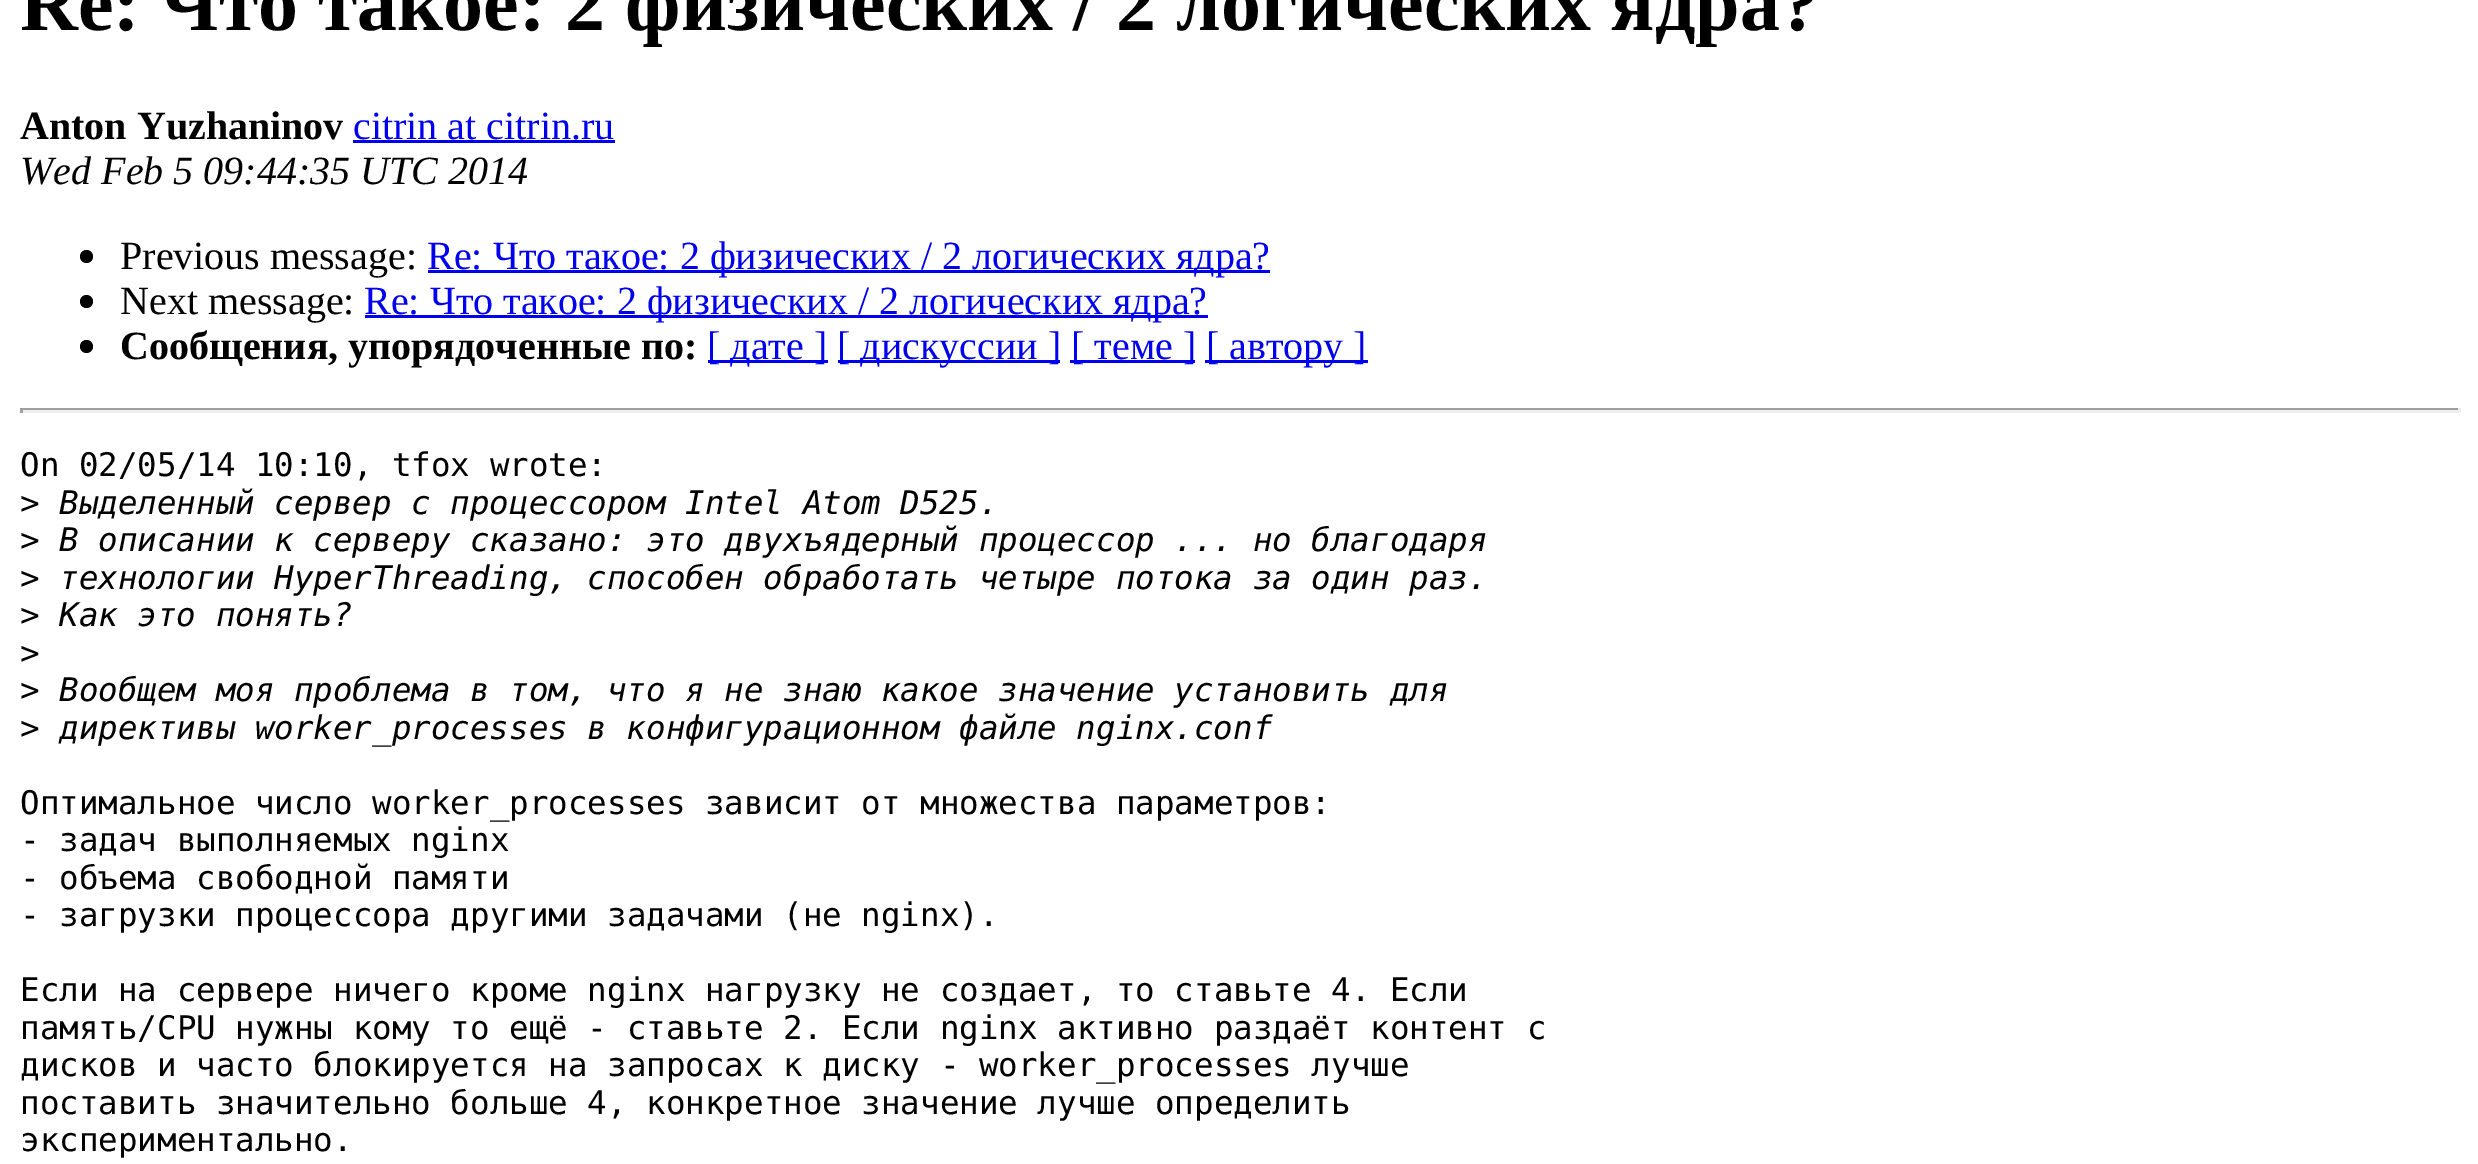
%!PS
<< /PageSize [2478 1164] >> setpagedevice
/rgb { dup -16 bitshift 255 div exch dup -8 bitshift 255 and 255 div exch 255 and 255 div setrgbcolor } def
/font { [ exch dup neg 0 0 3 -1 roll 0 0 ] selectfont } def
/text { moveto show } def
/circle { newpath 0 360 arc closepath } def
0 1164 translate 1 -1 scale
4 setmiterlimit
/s1 { /LiberationSerif-Bold 80 font 16#000000 rgb } def
/s2 { /LiberationSerif-Bold 40 font 16#000000 rgb } def
/s3 { /LiberationSerif-Regular 40 font 16#0000EE rgb } def
/s4 { /LiberationSerif-Italic 40 font 16#000000 rgb } def
/s5 { /LiberationSerif-Regular 40 font 16#000000 rgb } def
/s6 { /DejaVuSansMono-Regular 32.5 font 16#000000 rgb } def
/s7 { /DejaVuSansMono-Italic 32.5 font 16#000000 rgb } def
16#FFFFFF rgb
0 0 2478 1164 rectfill
s1
(Re: Что такое: 2 физических / 2 логических ядра?) 20 30 text
s2
(Anton Yuzhaninov) 20 139 text
s3
(citrin at citrin.ru) 353 139 text
353 140 262 3 rectfill
s4
(Wed Feb 5 09:44:35 UTC 2014) 20 184 text
86.5 256.5 6.5 circle fill
s5
(Previous message:) 120 269 text
16#0000EE rgb
428 270 842 3 rectfill
(Re: Что такое: 2 физических / 2 логических ядра?) 427 269 text
16#000000 rgb
86.5 301.5 6.5 circle fill
(Next message:) 120 314 text
16#0000EE rgb
365 315 843 3 rectfill
(Re: Что такое: 2 физических / 2 логических ядра?) 364 314 text
16#000000 rgb
86.5 346.5 6.5 circle fill
s2
(Сообщения, упорядоченные по:) 120 359 text
16#0000EE rgb
708 360 120 3 rectfill
s3
([ дате ]) 707 359 text
838 360 222 3 rectfill
([ дискуссии ]) 837 359 text
1070 360 125 3 rectfill
([ теме ]) 1071 359 text
1205 360 163 3 rectfill
([ автору ]) 1206 359 text
16#9F9F9F rgb
20 408 2440 2 rectfill
16#EEEEEE rgb
2458 408 3 5 rectfill
20 410 2440 3 rectfill
16#9F9F9F rgb
20 408 3 5 rectfill
s6
(On 02/05/14 10:10, tfox wrote:) 20 476 text
(>) 20 514 text
s7
(Выделенный сервер с процессором Intel Atom D525.) 59 514 text
s6
(>) 20 551 text
s7
(В описании к серверу сказано: это двухъядерный процессор ... но благодаря) 59 551 text
s6
(>) 20 589 text
s7
(технологии HyperThreading, способен обработать четыре потока за один раз.) 59 589 text
s6
(>) 20 626 text
s7
(Как это понять?) 59 626 text
s6
(>) 20 664 text
(>) 20 701 text
s7
(Вообщем моя проблема в том, что я не знаю какое значение установить для) 59 701 text
s6
(>) 20 739 text
s7
(директивы worker_processes в конфигурационном файле nginx.conf) 59 739 text
s6
(Оптимальное число worker_processes зависит от множества параметров:) 20 814 text
(- задач выполняемых nginx) 20 851 text
(- объема свободной памяти) 20 889 text
(- загрузки процессора другими задачами \(не nginx\).) 20 926 text
(Если на сервере ничего кроме nginx нагрузку не создает, то ставьте 4. Если) 20 1001 text
(память/CPU нужны кому то ещё - ставьте 2. Если nginx активно раздаёт контент с) 20 1039 text
(дисков и часто блокируется на запросах к диску - worker_processes лучше) 20 1076 text
(поставить значительно больше 4, конкретное значение лучше определить) 20 1114 text
(экспериментально.) 20 1151 text
showpage
